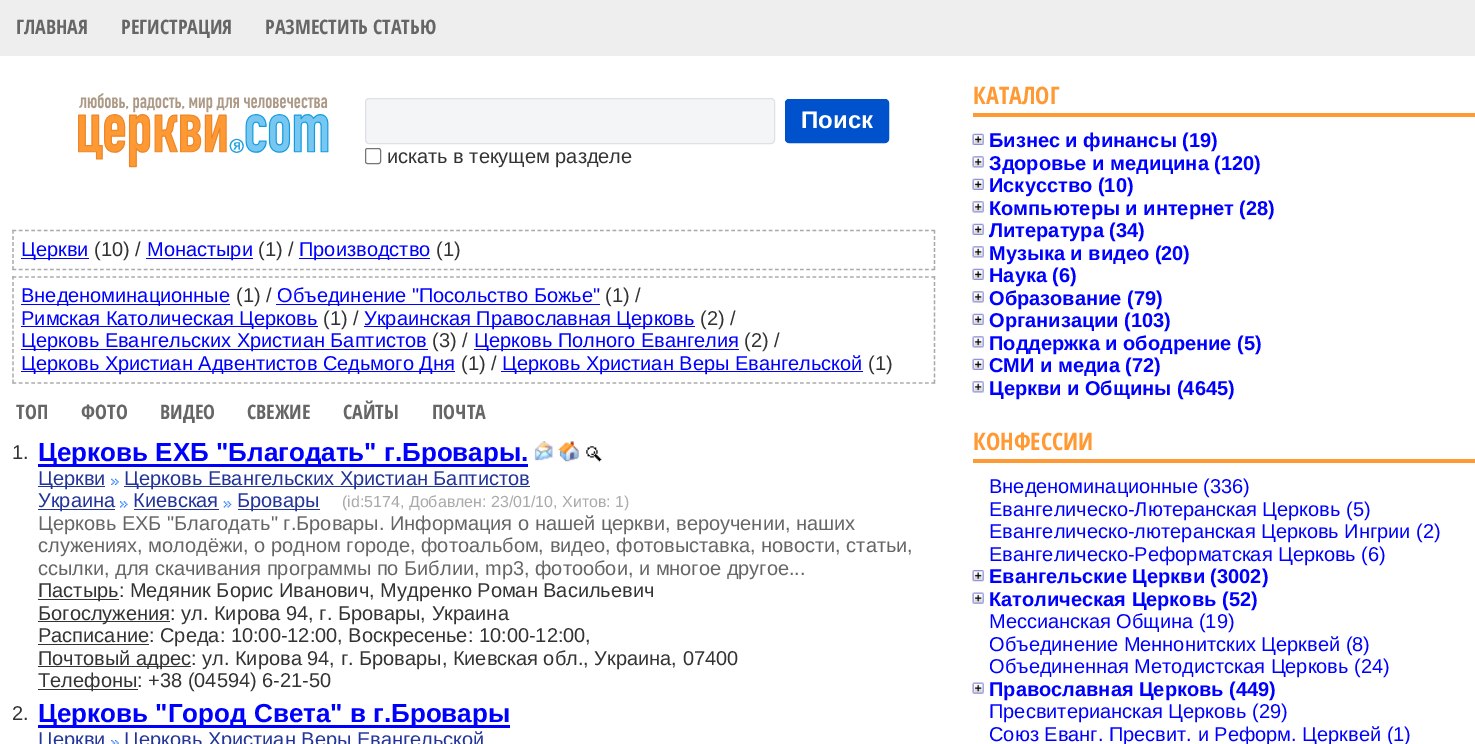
%!PS
<< /PageSize [1475 744] >> setpagedevice
/rgb { dup -16 bitshift 255 div exch dup -8 bitshift 255 and 255 div exch 255 and 255 div setrgbcolor } def
/font { [ exch dup neg 0 0 3 -1 roll 0 0 ] selectfont } def
/text { moveto show } def
/roundrect { 5 dict begin { /r /h /w /y /x } { exch def } forall
  x r add y moveto x w add y 2 copy h add r arct x w add y h add x 1 index r arct
  x y h add x y r arct x y 2 copy exch w add exch r arct closepath end } def
/picture { 5 dict begin { /h /w /y /x /name } { exch def } forall
  gsave x y translate w h scale
  w h 8 [w 0 0 h 0 0] name (r) file false 3 colorimage grestore end } def
0 744 translate 1 -1 scale
4 setmiterlimit
/s1 { /OpenSansCondensed-Bold 20 font 16#666666 rgb } def
/s2 { /LiberationSans-Bold 24 font 16#FFFFFF rgb } def
/s3 { /LiberationSans-Regular 20 font 16#333333 rgb } def
/s4 { /LiberationSans-Regular 20 font 16#0000FF rgb } def
/s5 { /LiberationSans-Bold 26 font 16#0000FF rgb } def
/s6 { /LiberationSans-Regular 20 font 16#223399 rgb } def
/s7 { /LiberationSans-Regular 16 font 16#AAAAAA rgb } def
/s8 { /LiberationSans-Regular 20 font 16#666666 rgb } def
/s9 { /OpenSansCondensed-Bold 24 font 16#FF9933 rgb } def
/s10 { /LiberationSans-Bold 20 font 16#0000FF rgb } def
16#FFFFFF rgb
0 0 1475 744 rectfill
16#EEEEEE rgb
0 0 1475 56 rectfill
s1
(ГЛАВНАЯ) 16 34 text
(РЕГИСТРАЦИЯ) 121 34 text
(РАЗМЕСТИТЬ СТАТЬЮ) 265 34 text
(pic1.raw) 78 93 251 75 picture
16#F4F5F7 rgb
365.5 98.5 409 45 3.5 roundrect gsave fill grestore
16#DFE1E6 rgb
stroke
16#0052CC rgb
785.5 99.5 103 43 3.5 roundrect gsave fill grestore
stroke
s2
(Поиск) 801 128 text
16#767676 rgb
365.5 148.5 15 15 2 roundrect stroke
s3
(искать в текущем разделе) 387 163 text
16#AAAAAA rgb
1.2 setlinewidth
[3.75 2.5] 0 setdash
12.5 230.5 moveto 935 230.5 lineto stroke
[3.75 2.29] 0 setdash
934.5 230 moveto 934.5 270 lineto stroke
[3.75 2.5] 0 setdash
12.5 269.5 moveto 935 269.5 lineto stroke
[3.75 2.29] 0 setdash
13 230 moveto 13 270 lineto stroke
16#0000FF rgb
21 258 68 1 rectfill
(Церкви) 21 256 text
s3
(\(10\) /) 94 256 text
16#0000FF rgb
146 258 107 1 rectfill
(Монастыри) 147 256 text
s3
(\(1\) /) 258 256 text
16#0000FF rgb
299 258 131 1 rectfill
(Производство) 299 256 text
s3
(\(1\)) 436 256 text
16#AAAAAA rgb
[3.75 2.5] 0 setdash
12.5 277 moveto 935 277 lineto stroke
[3.75 2.35] 0 setdash
934.5 276 moveto 934.5 384 lineto stroke
[3.75 2.5] 0 setdash
12.5 383 moveto 935 383 lineto stroke
[3.75 2.35] 0 setdash
13 276 moveto 13 384 lineto stroke
16#0000FF rgb
21 304 209 1 rectfill
(Внеденоминационные) 21 302 text
s3
(\(1\) /) 236 302 text
16#0000FF rgb
276 304 324 1 rectfill
(Объединение "Посольство Божье") 277 302 text
s3
(\(1\) /) 605 302 text
16#0000FF rgb
21 326 297 1 rectfill
(Римская Католическая Церковь) 21 325 text
s3
(\(1\) /) 323 325 text
16#0000FF rgb
364 326 331 1 rectfill
(Украинская Православная Церковь) 364 325 text
s3
(\(2\) /) 700 325 text
16#0000FF rgb
21 349 407 1 rectfill
(Церковь Евангельских Христиан Баптистов) 21 347 text
s3
(\(3\) /) 432 347 text
16#0000FF rgb
474 349 265 1 rectfill
(Церковь Полного Евангелия) 474 347 text
s3
(\(2\) /) 744 347 text
16#0000FF rgb
21 371 434 1 rectfill
(Церковь Христиан Адвентистов Седьмого Дня) 21 370 text
s3
(\(1\) /) 461 370 text
16#0000FF rgb
501 371 362 1 rectfill
(Церковь Христиан Веры Евангельской) 502 370 text
s3
(\(1\)) 868 370 text
s1
(ТОП) 16 419 text
(ФОТО) 81 419 text
(ВИДЕО) 160 419 text
(СВЕЖИЕ) 247 419 text
(САЙТЫ) 343 419 text
(ПОЧТА) 432 419 text
s3
(1.) 12 459 text
16#0000FF rgb
38 464 490 3 rectfill
s5
(Церковь ЕХБ "Благодать" г.Бровары.) 38 461 text
(pic2.raw) 534 441 19 20 picture
(pic3.raw) 558 441 21 21 picture
(pic4.raw) 586 446 16 16 picture
16#223399 rgb
38 486 67 1 rectfill
s6
(Церкви) 38 485 text
(pic5.raw) 111 478 8 7 picture
124 486 406 1 rectfill
(Церковь Евангельских Христиан Баптистов) 124 485 text
38 509 77 1 rectfill
(Украина) 38 507 text
(pic6.raw) 120 501 8 7 picture
(Киевская) 133 507 text
134 509 85 1 rectfill
(pic7.raw) 223 501 9 7 picture
238 509 82 1 rectfill
(Бровары) 237 507 text
s7
(\(id:5174, Добавлен: 23/01/10, Хитов: 1\)) 342 507 text
s8
(Церковь ЕХБ "Благодать" г.Бровары. Информация о нашей церкви, вероучении, наших) 38 530 text
(служениях, молодёжи, о родном городе, фотоальбом, видео, фотовыставка, новости, статьи,) 38 552 text
(ссылки, для скачивания программы по Библии, mp3, фотообои, и многое другое...) 38 575 text
16#333333 rgb
38 599 81 1 rectfill
(Пастырь: Медяник Борис Иванович, Мудренко Роман Васильевич) 38 597 text
38 621 132 1 rectfill
(Богослужения: ул. Кирова 94, г. Бровары, Украина) 38 620 text
38 644 111 1 rectfill
(Расписание: Среда: 10:00-12:00, Воскресенье: 10:00-12:00,) 38 642 text
38 666 153 1 rectfill
(Почтовый адрес: ул. Кирова 94, г. Бровары, Киевская обл., Украина, 07400) 38 665 text
38 689 100 1 rectfill
(Телефоны: +38 \(04594\) 6-21-50) 38 687 text
(2.) 12 720 text
16#0000FF rgb
38 725 472 3 rectfill
s5
(Церковь "Город Света" в г.Бровары) 38 722 text
s6
(Церкви) 38 746 text
(pic8.raw) 111 740 8 4 picture
(Церковь Христиан Веры Евангельской) 124 746 text
16#FF9933 rgb
973 113 502 4 rectfill
s9
(КАТАЛОГ) 973 104 text
(pic9.raw) 972 133 12 12 picture
s10
(Бизнес и финансы \(19\)) 989 147 text
(pic10.raw) 972 156 12 12 picture
(Здоровье и медицина \(120\)) 989 170 text
(pic9.raw) 972 178 12 12 picture
(Искусство \(10\)) 989 192 text
(pic10.raw) 972 201 12 12 picture
(Компьютеры и интернет \(28\)) 989 215 text
(pic9.raw) 972 223 12 12 picture
(Литература \(34\)) 989 237 text
(pic10.raw) 972 246 12 12 picture
(Музыка и видео \(20\)) 989 260 text
(pic9.raw) 972 268 12 12 picture
(Наука \(6\)) 989 282 text
(pic11.raw) 972 291 12 12 picture
(Образование \(79\)) 989 305 text
(pic9.raw) 972 313 12 12 picture
(Организации \(103\)) 989 327 text
(pic10.raw) 972 336 12 12 picture
(Поддержка и ободрение \(5\)) 989 350 text
(pic9.raw) 972 358 12 12 picture
(СМИ и медиа \(72\)) 989 372 text
(pic10.raw) 972 381 12 12 picture
(Церкви и Общины \(4645\)) 989 395 text
16#FF9933 rgb
973 459 502 4 rectfill
s9
(КОНФЕССИИ) 973 450 text
s4
(Внеденоминационные \(336\)) 989 493 text
(Евангелическо-Лютеранская Церковь \(5\)) 989 516 text
(Евангелическо-лютеранская Церковь Ингрии \(2\)) 989 538 text
(Евангелическо-Реформатская Церковь \(6\)) 989 561 text
(pic12.raw) 972 570 12 12 picture
s10
(Евангельские Церкви \(3002\)) 989 583 text
(pic13.raw) 972 592 12 12 picture
(Католическая Церковь \(52\)) 989 606 text
s4
(Мессианская Община \(19\)) 989 628 text
(Объединение Меннонитских Церквей \(8\)) 989 651 text
(Объединенная Методистская Церковь \(24\)) 989 673 text
(pic13.raw) 972 682 12 12 picture
s10
(Православная Церковь \(449\)) 989 696 text
s4
(Пресвитерианская Церковь \(29\)) 989 718 text
(Союз Еванг. Пресвит. и Реформ. Церквей \(1\)) 989 741 text
showpage
